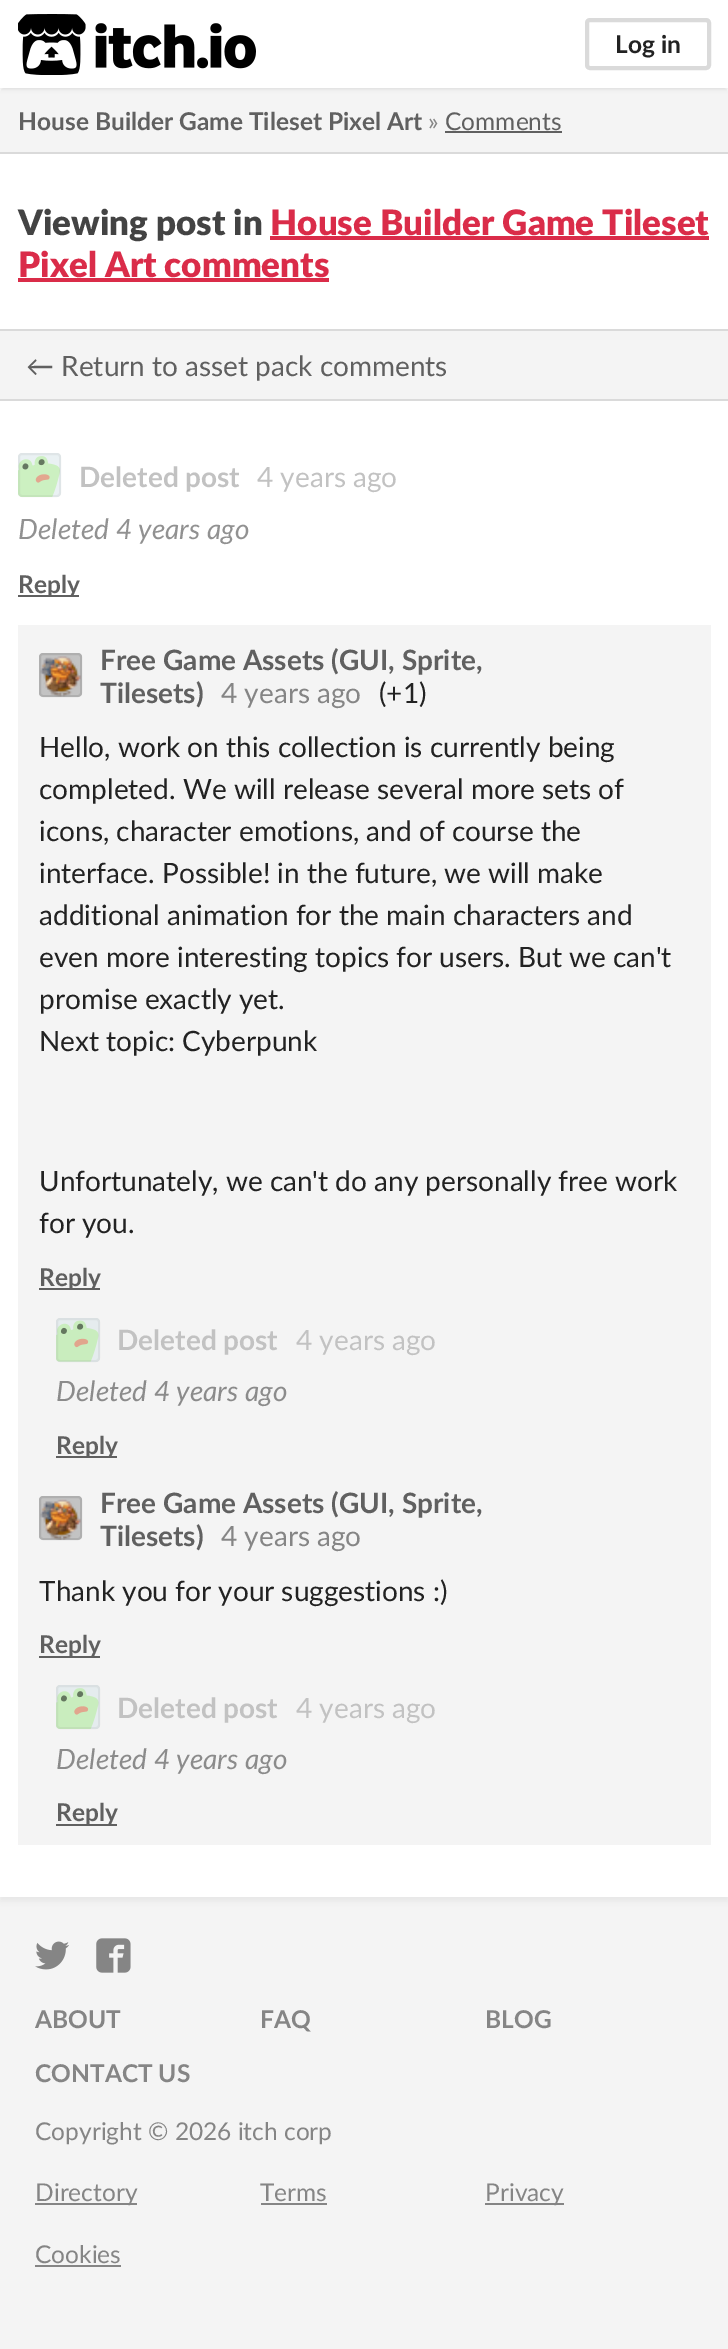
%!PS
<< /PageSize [728 2349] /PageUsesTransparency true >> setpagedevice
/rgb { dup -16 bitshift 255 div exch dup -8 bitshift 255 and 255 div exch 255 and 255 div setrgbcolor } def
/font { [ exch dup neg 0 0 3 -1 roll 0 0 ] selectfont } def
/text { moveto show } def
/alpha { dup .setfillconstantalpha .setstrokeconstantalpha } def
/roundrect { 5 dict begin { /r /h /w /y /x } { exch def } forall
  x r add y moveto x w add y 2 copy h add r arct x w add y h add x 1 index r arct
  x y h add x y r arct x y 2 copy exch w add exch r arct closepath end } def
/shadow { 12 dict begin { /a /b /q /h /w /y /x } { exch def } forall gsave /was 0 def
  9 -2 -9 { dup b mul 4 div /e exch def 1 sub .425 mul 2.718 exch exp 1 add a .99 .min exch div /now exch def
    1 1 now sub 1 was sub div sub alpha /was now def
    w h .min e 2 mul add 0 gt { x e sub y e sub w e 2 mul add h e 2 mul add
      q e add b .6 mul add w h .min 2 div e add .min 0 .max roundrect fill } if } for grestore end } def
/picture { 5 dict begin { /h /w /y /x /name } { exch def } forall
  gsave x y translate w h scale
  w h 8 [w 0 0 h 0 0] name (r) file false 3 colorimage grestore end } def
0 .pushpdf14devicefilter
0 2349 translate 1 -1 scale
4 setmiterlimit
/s1 { /Lato-Bold 24.5 font 16#222222 rgb } def
/s2 { /Lato-Bold 24.5 font 16#606060 rgb } def
/s3 { /Lato-Regular 24.5 font 16#858585 rgb } def
/s4 { /Lato-Regular 24.5 font 16#606060 rgb } def
/s5 { /Lato-Black 35 font 16#434343 rgb } def
/s6 { /Lato-Black 35 font 16#DA2C49 rgb } def
/s7 { /Lato-Regular 28 font 16#606060 rgb } def
/s8 { /Lato-Bold 28 font 16#C2C2C2 rgb } def
/s9 { /Lato-Regular 28 font 16#C2C2C2 rgb } def
/s10 { /Lato-Italic 28 font 16#919191 rgb } def
/s11 { /Lato-Bold 28 font 16#606060 rgb } def
/s12 { /Lato-Regular 28 font 16#858585 rgb } def
/s13 { /Lato-Regular 28 font 16#222222 rgb } def
/s14 { /Lato-Italic 28 font 16#8B8B8B rgb } def
/s15 { /Lato-Bold 24.5 font 16#858585 rgb } def
16#F4F4F4 rgb
0 0 728 2349 rectfill
16#000000 rgb
0 91 728 1810 0 3.5 0.05 shadow
16#FFFFFF rgb
0 88 728 1809 rectfill
16#F4F4F4 rgb
5 88 moveto 723 88 lineto 726 88 728 90 728 93 curveto 728 154 lineto 0 154 lineto 0 93 lineto 0 90 2 88 5 88 curveto closepath fill
16#000000 rgb
0 2 728 87 0 2 0.1 shadow
16#FFFFFF rgb
0 0 728 88 rectfill
(pic1.raw) 18 14 238 61 picture
16#DADADA rgb
4 setlinewidth
587 20 122 48 3 roundrect stroke
s1
(Log in) 615 53 text
16#DADADA rgb
0 152 728 2 rectfill
s2
(House Builder Game Tileset Pixel Art) 18 130 text
s3
(») 428 130 text
s4
(Comments) 445 130 text
445 131 117 2 rectfill
16#DADADA rgb
0 329 728 2 rectfill
s5
(Viewing post in) 18 235 text
s6
(House Builder Game Tileset) 270 235 text
270 236 439 4 rectfill
(Pixel Art comments) 18 277 text
18 278 311 4 rectfill
16#F4F4F4 rgb
0 331 728 68 rectfill
16#DADADA rgb
0 399 728 2 rectfill
s7
(← Return to asset pack comments) 26 376 text
16#E6E6E6 rgb
18 453 43 44 4 roundrect fill
(pic2.raw) 18 453 43 44 picture
0.1 alpha
16#808080 rgb
2 setlinewidth
19 454 41 42 3 roundrect stroke
1 alpha
s8
(Deleted post) 79 487 text
s9
(4 years ago) 257 487 text
s10
(Deleted 4 years ago) 18 539 text
16#606060 rgb
18 595 61 2 rectfill
s2
(Reply) 18 593 text
16#F4F4F4 rgb
18 625 693 1220 rectfill
16#C3C3C3 rgb
39 653 43 44 4 roundrect fill
(pic3.raw) 40 656 41 41 picture
0.1 alpha
16#000000 rgb
40 654 41 42 3 roundrect stroke
1 alpha
s11
(Free Game Assets \(GUI, Sprite,) 100 670 text
(Tilesets\)) 100 703 text
s12
(4 years ago) 221 703 text
s13
(\(+1\)) 379 703 text
(Hello, work on this collection is currently being) 39 757 text
(completed. We will release several more sets of) 39 799 text
(icons, character emotions, and of course the) 39 841 text
(interface. Possible! in the future, we will make) 39 883 text
(additional animation for the main characters and) 39 925 text
(even more interesting topics for users. But we can't) 39 967 text
(promise exactly yet.) 39 1009 text
(Next topic: Cyberpunk) 39 1051 text
(Unfortunately, we can't do any personally free work) 39 1191 text
(for you.) 39 1233 text
16#606060 rgb
39 1288 61 2 rectfill
s2
(Reply) 39 1286 text
16#DCDCDC rgb
56 1318 44 44 4 roundrect fill
(pic4.raw) 56 1318 44 44 picture
0.1 alpha
16#7A7A7A rgb
57 1319 42 42 3 roundrect stroke
1 alpha
s8
(Deleted post) 117 1350 text
s9
(4 years ago) 296 1350 text
s14
(Deleted 4 years ago) 56 1401 text
16#606060 rgb
56 1456 61 2 rectfill
s2
(Reply) 56 1454 text
16#C3C3C3 rgb
39 1496 43 44 4 roundrect fill
(pic5.raw) 40 1499 41 41 picture
0.1 alpha
16#000000 rgb
40 1497 41 42 3 roundrect stroke
1 alpha
s11
(Free Game Assets \(GUI, Sprite,) 100 1513 text
(Tilesets\)) 100 1546 text
s12
(4 years ago) 221 1546 text
s13
(Thank you for your suggestions :\)) 39 1601 text
16#606060 rgb
39 1656 61 2 rectfill
s2
(Reply) 39 1653 text
16#DCDCDC rgb
56 1685 44 44 4 roundrect fill
(pic6.raw) 56 1685 44 44 picture
0.1 alpha
16#7A7A7A rgb
57 1686 42 42 3 roundrect stroke
1 alpha
s8
(Deleted post) 117 1718 text
s9
(4 years ago) 296 1718 text
s14
(Deleted 4 years ago) 56 1769 text
16#606060 rgb
56 1824 61 2 rectfill
s2
(Reply) 56 1821 text
(pic7.raw) 35 1941 34 29 picture
(pic8.raw) 96 1938 35 35 picture
s15
(ABOUT) 35 2028 text
(FAQ) 260 2028 text
(BLOG) 485 2028 text
(CONTACT US) 35 2082 text
s3
(Copyright © 2026 itch corp) 35 2140 text
35 2203 102 2 rectfill
(Directory) 35 2201 text
(Terms) 260 2201 text
261 2203 66 2 rectfill
485 2203 79 2 rectfill
(Privacy) 485 2201 text
(Cookies) 35 2263 text
35 2265 86 2 rectfill
.poppdf14devicefilter showpage
